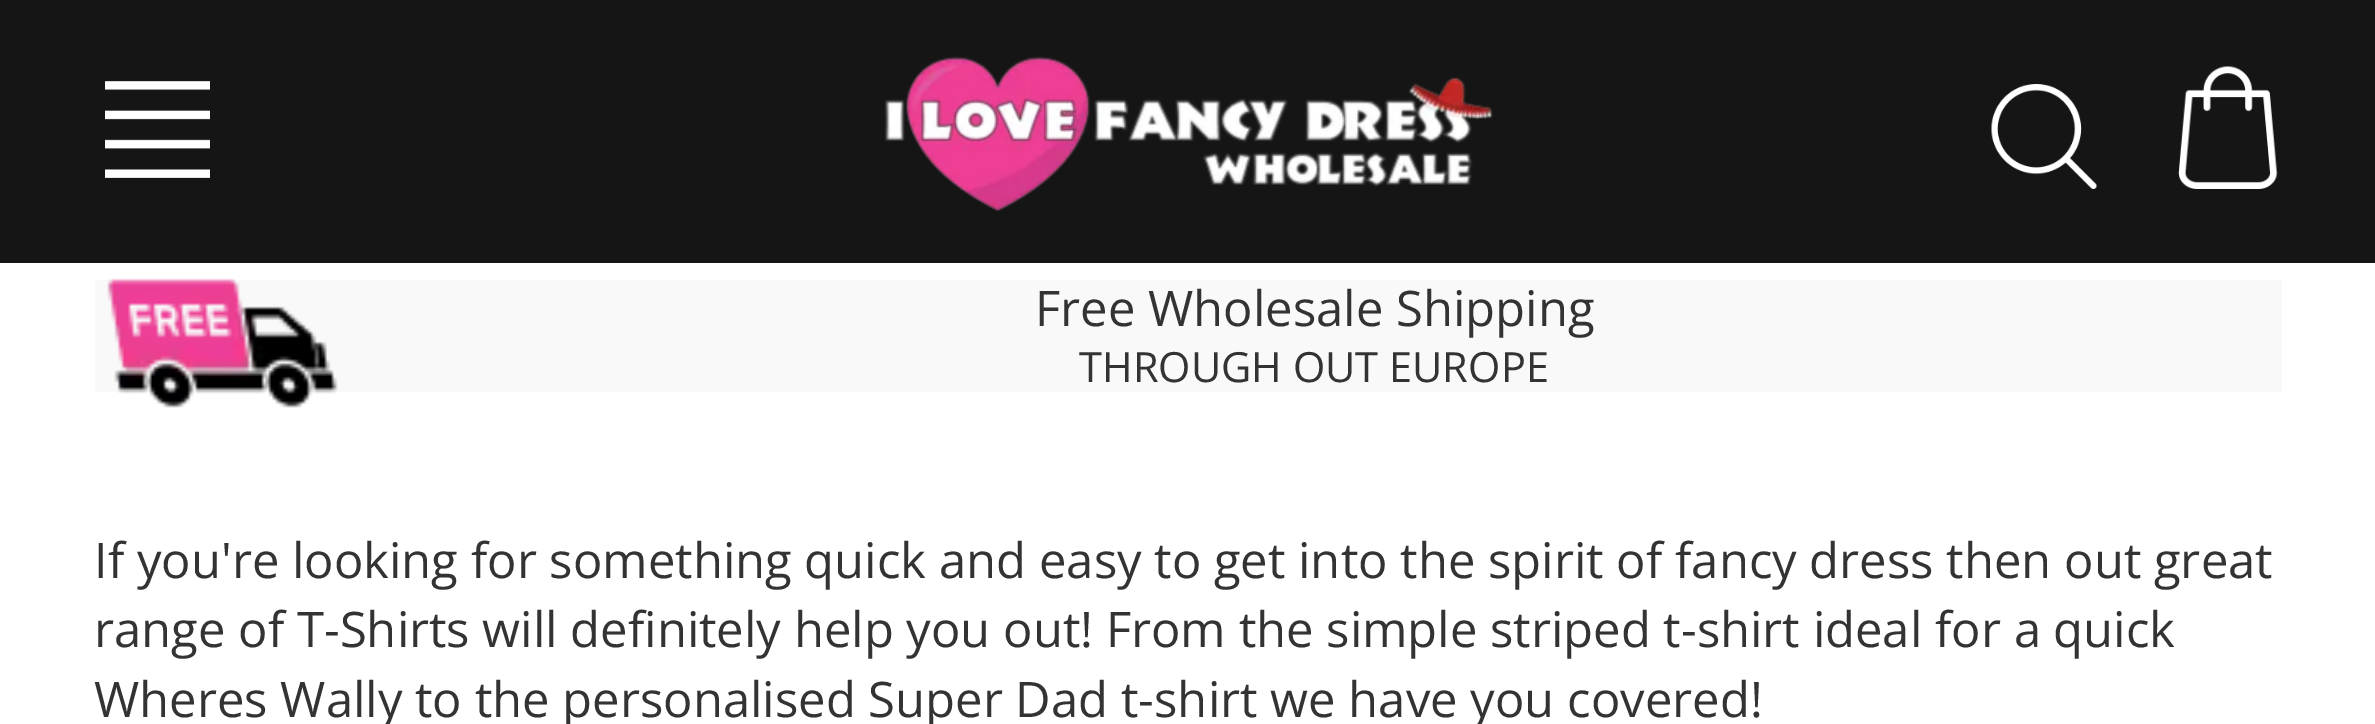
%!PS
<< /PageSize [2375 724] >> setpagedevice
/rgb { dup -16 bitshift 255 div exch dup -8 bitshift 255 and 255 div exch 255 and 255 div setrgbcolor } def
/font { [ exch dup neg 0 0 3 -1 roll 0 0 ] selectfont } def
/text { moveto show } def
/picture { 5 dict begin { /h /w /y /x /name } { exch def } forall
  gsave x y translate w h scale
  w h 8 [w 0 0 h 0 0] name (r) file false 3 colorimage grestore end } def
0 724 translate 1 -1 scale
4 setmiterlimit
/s1 { /OpenSans-Regular 49 font 16#333333 rgb } def
/s2 { /OpenSans-Regular 41.6 font 16#333333 rgb } def
16#FFFFFF rgb
0 0 2375 724 rectfill
16#151515 rgb
0 0 2375 263 rectfill
(pic1.raw) 884 56 609 155 picture
(pic2.raw) 105 81 105 97 picture
(pic3.raw) 1991 84 106 105 picture
(pic4.raw) 2178 66 100 123 picture
16#F9F9F9 rgb
95 280 2187 112 rectfill
(pic5.raw) 107 278 231 130 picture
s1
(Free Wholesale Shipping) 1035 326 text
s2
(THROUGH OUT EUROPE) 1079 382 text
s1
(If you're looking for something quick and easy to get into the spirit of fancy dress then out great) 94 578 text
(range of T-Shirts will definitely help you out! From the simple striped t-shirt ideal for a quick) 94 647 text
(Wheres Wally to the personalised Super Dad t-shirt we have you covered!) 94 717 text
showpage
